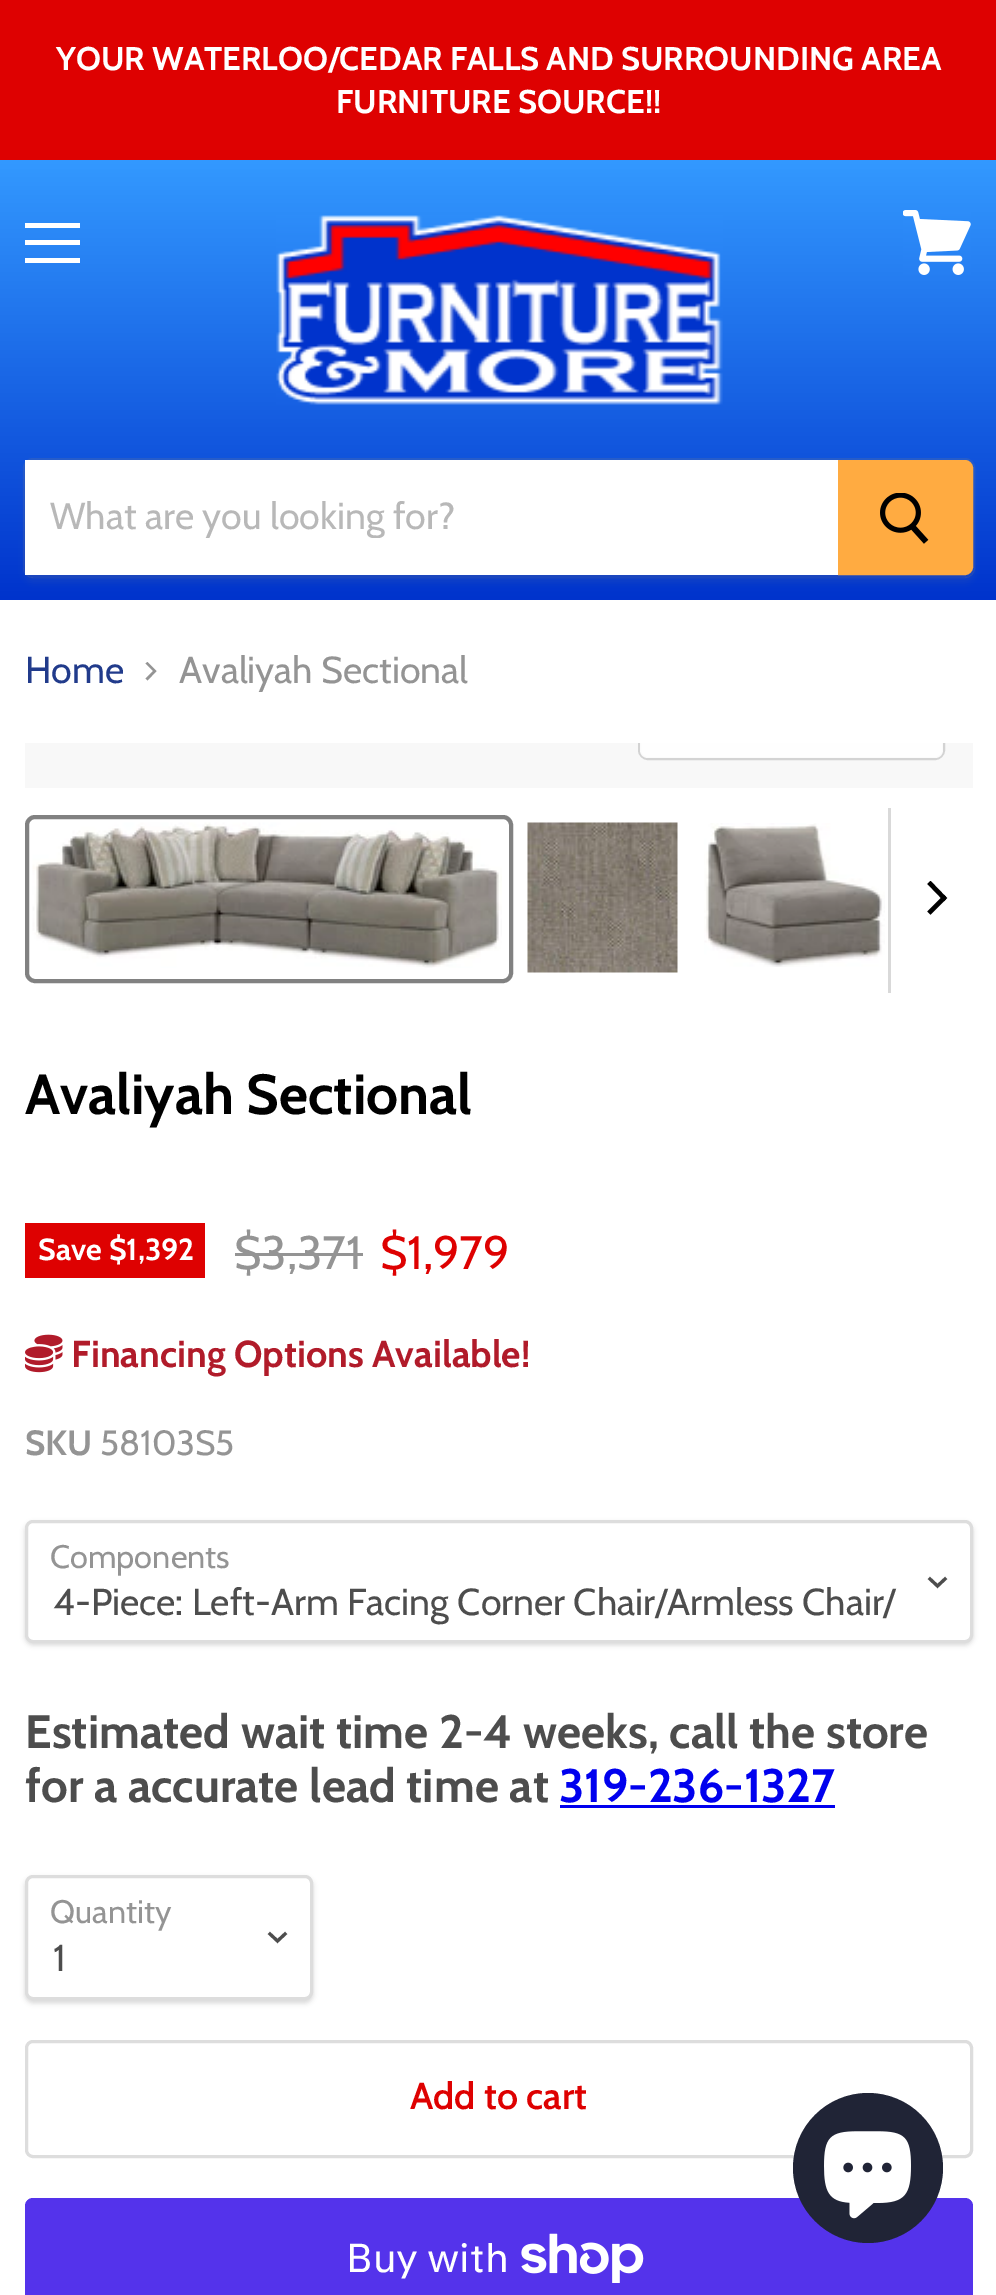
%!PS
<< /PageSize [996 2295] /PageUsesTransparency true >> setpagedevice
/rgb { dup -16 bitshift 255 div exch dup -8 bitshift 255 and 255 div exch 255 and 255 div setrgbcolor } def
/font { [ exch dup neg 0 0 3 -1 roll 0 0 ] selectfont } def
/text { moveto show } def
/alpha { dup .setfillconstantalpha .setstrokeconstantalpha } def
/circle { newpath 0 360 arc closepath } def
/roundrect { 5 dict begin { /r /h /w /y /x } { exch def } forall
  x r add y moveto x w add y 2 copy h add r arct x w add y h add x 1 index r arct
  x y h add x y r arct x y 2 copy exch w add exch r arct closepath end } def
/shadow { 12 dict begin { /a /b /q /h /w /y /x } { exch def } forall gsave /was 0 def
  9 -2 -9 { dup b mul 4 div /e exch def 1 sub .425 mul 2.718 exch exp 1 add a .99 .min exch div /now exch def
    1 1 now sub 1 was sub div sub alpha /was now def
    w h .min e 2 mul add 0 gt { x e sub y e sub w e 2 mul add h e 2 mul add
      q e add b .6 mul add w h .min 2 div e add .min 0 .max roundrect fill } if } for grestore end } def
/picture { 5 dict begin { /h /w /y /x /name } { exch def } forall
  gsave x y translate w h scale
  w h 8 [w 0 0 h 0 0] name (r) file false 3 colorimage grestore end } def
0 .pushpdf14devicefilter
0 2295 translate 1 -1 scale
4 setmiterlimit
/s1 { /Cabin-Bold 32.8 font 16#FFFFFF rgb } def
/s2 { /Cabin-Regular 37.5 font 16#B8B8B8 rgb } def
/s3 { /Cabin-Regular 37.5 font 16#213B8B rgb } def
/s4 { /Cabin-Regular 37.5 font 16#949494 rgb } def
/s5 { /Cabin-Bold 56.25 font 16#000000 rgb } def
/s6 { /Cabin-Bold 30.5 font 16#FFFFFF rgb } def
/s7 { /Cabin-Regular 46.9 font 16#949494 rgb } def
/s8 { /Cabin-Regular 46.9 font 16#DE0101 rgb } def
/s9 { /Cabin-Bold 37.5 font 16#B11B2A rgb } def
/s10 { /Cabin-Bold 35 font 16#949494 rgb } def
/s11 { /Cabin-Regular 35 font 16#949494 rgb } def
/s12 { /Cabin-Regular 32.5 font 16#949494 rgb } def
/s13 { /Cabin-Regular 37.5 font 16#4D4D4D rgb } def
/s14 { /Cabin-Bold 46.9 font 16#4D4D4D rgb } def
/s15 { /Cabin-Bold 46.9 font 16#0000EE rgb } def
/s16 { /Cabin-SemiBold 37.5 font 16#DE0101 rgb } def
/s17 { /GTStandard-Regular 40 font 16#FFFFFF rgb } def
16#FFFFFF rgb
0 0 996 2295 rectfill
16#DE0101 rgb
0 0 996 160 rectfill
/Cabin-Bold 32.8 font
16#FFFFFF rgb
56 70 moveto -0.25 0 32 (YOUR WATERLOO/CEDAR FALLS AND SURROUNDING AREA) widthshow
(FURNITURE SOURCE!!) 336 113 text
gsave 0 160 moveto 996 160 lineto 996 600 lineto 0 600 lineto closepath clip newpath
<< /ShadingType 2 /ColorSpace /DeviceRGB /Coords [499 160 499 600] /Extend [true true] /Function << /FunctionType 2 /Domain [0 1] /C0 [0.2 0.6 1] /C1 [0 0.2 0.8] /N 1 >> >> shfill grestore
25 223 55 5 rectfill
25 240 55 5 rectfill
25 258 55 5 rectfill
(pic1.raw) 903 210 68 65 picture
(pic2.raw) 276 215 447 190 picture
gsave
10 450 moveto 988 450 lineto 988 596 lineto 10 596 lineto closepath 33 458 moveto 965 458 lineto 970.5 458 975 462.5 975 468 curveto 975 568 lineto 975 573.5 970.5 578 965 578 curveto 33 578 lineto 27.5 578 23 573.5 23 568 curveto 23 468 lineto 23 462.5 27.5 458 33 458 curveto closepath eoclip newpath
16#808080 rgb
23 463 952 120 10 4 0.11 shadow
grestore
0.2 alpha
16#808080 rgb
3 setlinewidth
24.5 459.5 949 117 8.5 roundrect stroke
1 alpha
16#FFFFFF rgb
25 460 813 115 rectfill
gsave
50 493 763 45 rectclip
s2
(What are you looking for?) 50 529 text
grestore
16#FFAB41 rgb
839.5 461.5 moveto 965 461.5 lineto 968.5 461.5 971.5 464.5 971.5 468 curveto 971.5 567 lineto 971.5 570.5 968.5 573.5 965 573.5 curveto 839.5 573.5 lineto closepath gsave fill grestore
stroke
(pic3.raw) 880 493 49 51 picture
s3
(Home) 25 683 text
16#949494 rgb
145.5 678.5 moveto 147.5 680.5 lineto 156.5 671 lineto 147.5 662 lineto 145.5 663.5 lineto 153 671 lineto closepath eofill
(Avaliyah Sectional) 179 683 text
16#F8F8F8 rgb
25 743 948 45 rectfill
gsave
25 743 948 45 rectclip
16#D3D3D3 rgb
639.5 689.5 304 69 8.5 roundrect stroke
grestore
0.9 alpha
16#FFFFFF rgb
640 743 moveto 943 743 lineto 943 750 lineto 943 754.5 939.5 758 935 758 curveto 648 758 lineto 643.5 758 640 754.5 640 750 curveto closepath fill
1 alpha
16#818181 rgb
4 setlinewidth
27 817 484 164 8 roundrect stroke
(pic4.raw) 32 822 470 146 picture
(pic5.raw) 527 822 151 151 picture
(pic6.raw) 704 823 181 144 picture
16#D9D9D9 rgb
888 808 3 185 rectfill
gsave
926 916.5 moveto 926 881.5 lineto 946 881.5 lineto 946 916.5 lineto closepath clip newpath
16#000000 rgb
4.4 setlinewidth
2 setlinecap
944 898 moveto 930.5 884 lineto stroke
grestore
16#000000 rgb
4.4 setlinewidth
2 setlinecap
944 898 moveto 930.5 911.5 lineto stroke
s5
(Avaliyah Sectional) 25 1114 text
16#DE0101 rgb
25 1223 180 55 rectfill
s6
(Save $1,392) 38 1260 text
s7
($3,371) 234 1269 text
235 1253 128 3 rectfill
s8
($1,979) 380 1269 text
(pic7.raw) 25 1334 38 39 picture
s9
(Financing Options Available!) 71 1367 text
s10
(SKU) 25 1455 text
s11
(58103S5) 100 1455 text
16#000000 rgb
25 1523 948 122 8 2.5 0.15 shadow
16#FFFFFF rgb
26.5 1521.5 945 120 6.5 roundrect gsave fill grestore
16#DDDDDD rgb
3 setlinewidth
0 setlinecap
stroke
s12
(Components) 50 1568 text
16#4D4D4D rgb
3.1 setlinewidth
2 setlinecap
937.5 1586 moveto 945 1579 lineto 937.5 1586 moveto 930 1579 lineto stroke
s13
(4-Piece: Left-Arm Facing Corner Chair/Armless Chair/) 53 1615 text
s14
(Estimated wait time 2-4 weeks, call the store) 25 1748 text
(for a accurate lead time at) 25 1802 text
s15
(319-236-1327) 559 1802 text
560 1805 275 3 rectfill
16#000000 rgb
25 1878 288 125 8 2.5 0.15 shadow
16#FFFFFF rgb
26.5 1876.5 285 122 6.5 roundrect gsave fill grestore
16#DDDDDD rgb
3 setlinewidth
0 setlinecap
stroke
s12
(Quantity) 50 1923 text
16#4D4D4D rgb
3.1 setlinewidth
2 setlinecap
277.5 1941 moveto 285 1934 lineto 277.5 1941 moveto 270 1934 lineto stroke
s13
(1) 53 1971 text
16#DDDDDD rgb
3 setlinewidth
0 setlinecap
26.5 2041.5 945 115 6.5 roundrect stroke
s16
(Add to cart) 410 2109 text
16#5433EB rgb
25 2198 948 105 8 roundrect fill
s17
(Buy with) 346 2272 text
(pic8.raw) 521 2233 123 50 picture
16#202436 rgb
868 2168 75 circle fill
(pic9.raw) 824 2131 87 88 picture
.poppdf14devicefilter showpage
